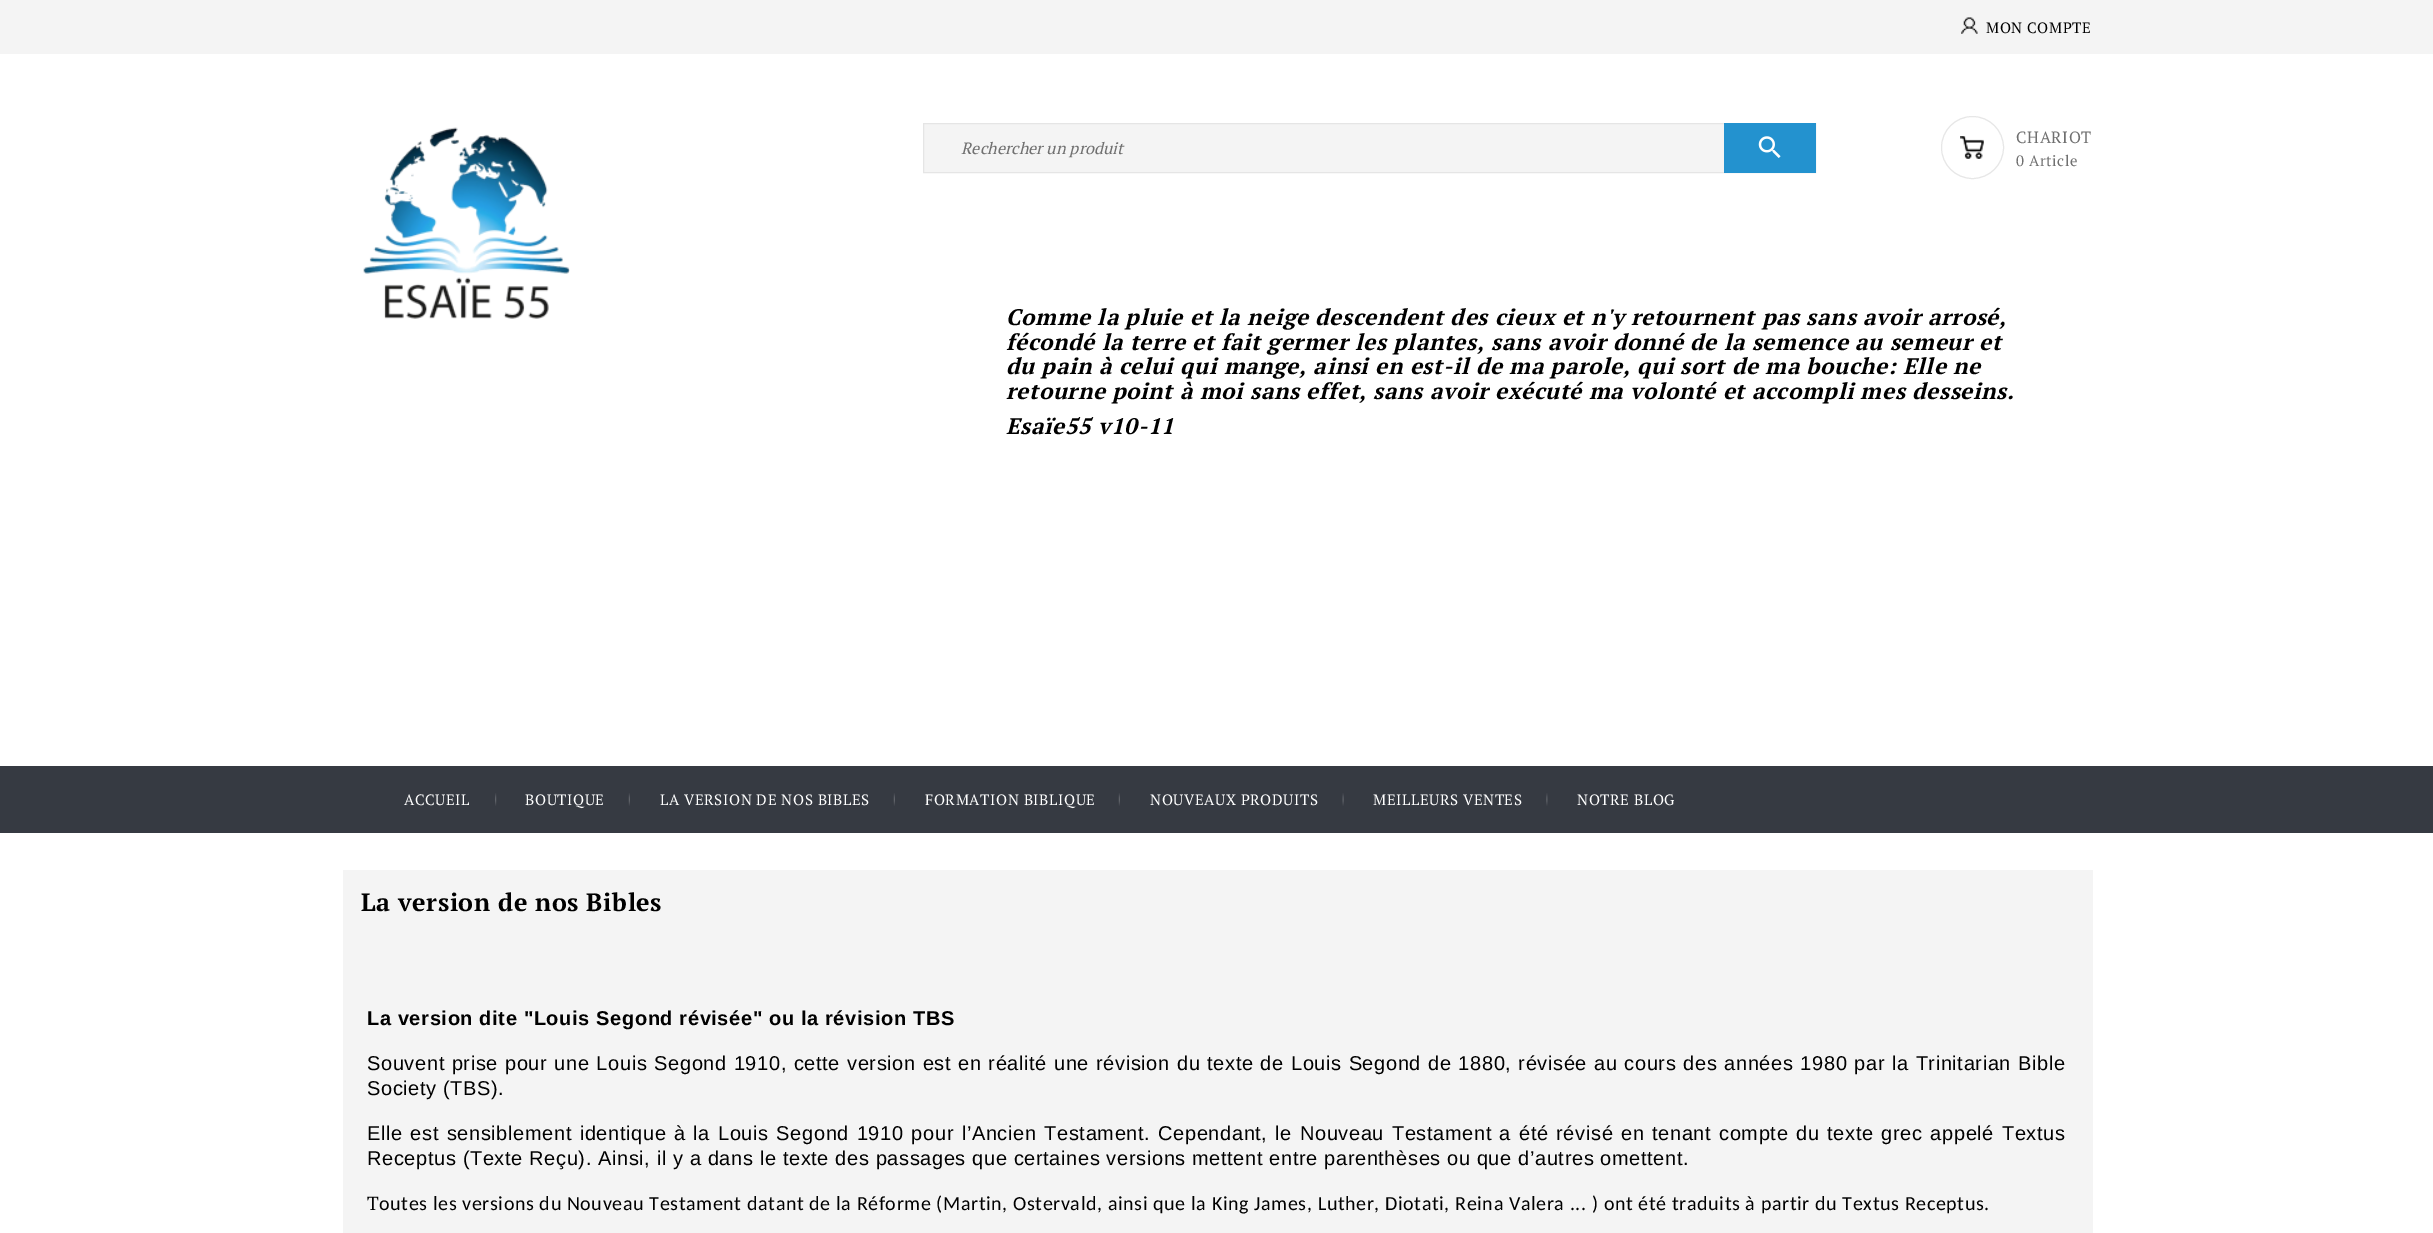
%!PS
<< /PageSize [2433 1233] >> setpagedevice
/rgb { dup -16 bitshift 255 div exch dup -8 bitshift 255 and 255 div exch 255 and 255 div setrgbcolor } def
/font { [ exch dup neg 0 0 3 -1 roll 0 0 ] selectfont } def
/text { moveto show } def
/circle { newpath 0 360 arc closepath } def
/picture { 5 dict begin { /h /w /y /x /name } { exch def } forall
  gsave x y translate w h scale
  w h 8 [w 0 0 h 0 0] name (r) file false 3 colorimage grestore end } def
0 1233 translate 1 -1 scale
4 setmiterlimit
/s1 { /PTSerif-Italic 16.25 font 16#707070 rgb } def
16#FFFFFF rgb
0 0 2433 1233 rectfill
16#F4F4F4 rgb
0 0 2433 54 rectfill
(pic1.raw) 1961 17 17 17 picture
/PTSerif-Regular 15 font
16#000000 rgb
1986 33 moveto 0.62 0 (MON COMPTE) ashow
(pic2.raw) 363 127 207 192 picture
16#F4F4F4 rgb
924 124 800 48 rectfill
16#E5E5E5 rgb
923.5 123.5 892 49 rectstroke
s1
(Rechercher un produit) 961 154 text
16#2392CF rgb
1724 123 92 50 rectfill
(pic3.raw) 1758 136 23 22 picture
(pic4.raw) 1960 136 24 23 picture
16#E7E7E7 rgb
1972.5 147.5 31 circle stroke
/PTSerif-Regular 16.25 font
16#707070 rgb
2016 143 moveto 0.62 0 (CHARIOT) ashow
/PTSerif-Regular 15 font
2016 166 moveto 0.62 0 (0 Article) ashow
/PTSerif-BoldItalic 22.5 font
16#000000 rgb
1006 325 moveto 0.62 0 (Comme la pluie et la neige descendent des cieux et n'y retournent pas sans avoir arrosé,) ashow
1006 350 moveto 0.62 0 (fécondé la terre et fait germer les plantes, sans avoir donné de la semence au semeur et) ashow
1006 374 moveto 0.62 0 (du pain à celui qui mange, ainsi en est-il de ma parole, qui sort de ma bouche: Elle ne) ashow
1006 399 moveto 0.62 0 (retourne point à moi sans effet, sans avoir exécuté ma volonté et accompli mes desseins.) ashow
1006 434 moveto 0.62 0 (Esaïe55 v10-11) ashow
16#363A42 rgb
0 766 2433 67 rectfill
(pic5.raw) 495 793 2 13 picture
/PTSerif-Regular 15 font
16#FFFFFF rgb
404 805 moveto 0.62 0 (ACCUEIL) ashow
(pic6.raw) 628 793 2 13 picture
525 805 moveto 0.62 0 (BOUTIQUE) ashow
(pic6.raw) 893 793 2 13 picture
660 805 moveto 0.62 0 (LA VERSION DE NOS BIBLES) ashow
(pic6.raw) 1118 793 2 13 picture
925 805 moveto 0.62 0 (FORMATION BIBLIQUE) ashow
(pic7.raw) 1342 793 2 13 picture
1150 805 moveto 0.62 0 (NOUVEAUX PRODUITS) ashow
(pic8.raw) 1546 793 2 13 picture
1373 805 moveto 0.62 0 (MEILLEURS VENTES) ashow
1577 805 moveto 0.62 0 (NOTRE BLOG) ashow
16#F4F4F4 rgb
343 870 1750 363 rectfill
/PTSerif-Bold 25 font
16#000000 rgb
361 911 moveto 0.62 0 (La version de nos Bibles) ashow
/LiberationSans-Bold 20 font
367 1025 moveto 0.62 0 (La version dite "Louis Segond révisée" ou la révision TBS) ashow
/LiberationSans-Regular 20 font
367 1070 moveto 0.7 0 32 0.62 0 (Souvent prise pour une Louis Segond 1910, cette version est en réalité une révision du texte de Louis Segond de 1880, révisée au cours des années 1980 par la Trinitarian Bible) awidthshow
367 1095 moveto 0.62 0 (Society \(TBS\).) ashow
367 1140 moveto 1.5 0 32 0.62 0 (Elle est sensiblement identique à la Louis Segond 1910 pour l’Ancien Testament. Cependant, le Nouveau Testament a été révisé en tenant compte du texte grec appelé Textus) awidthshow
367 1165 moveto 0.62 0 (Receptus \(Texte Reçu\). Ainsi, il y a dans le texte des passages que certaines versions mettent entre parenthèses ou que d’autres omettent.) ashow
/PTSerif-Regular 19 font
367 1210 moveto 0.62 0 (T) ashow
/Carlito-Regular 20 font
379 1210 moveto 0.62 0 (outes les versions du Nouveau Testament datant de la Réforme \(Martin, Ostervald, ainsi que la King James, Luther, Diotati, Reina Valera ... \) ont été traduits à partir du Textus Receptus.) ashow
showpage
